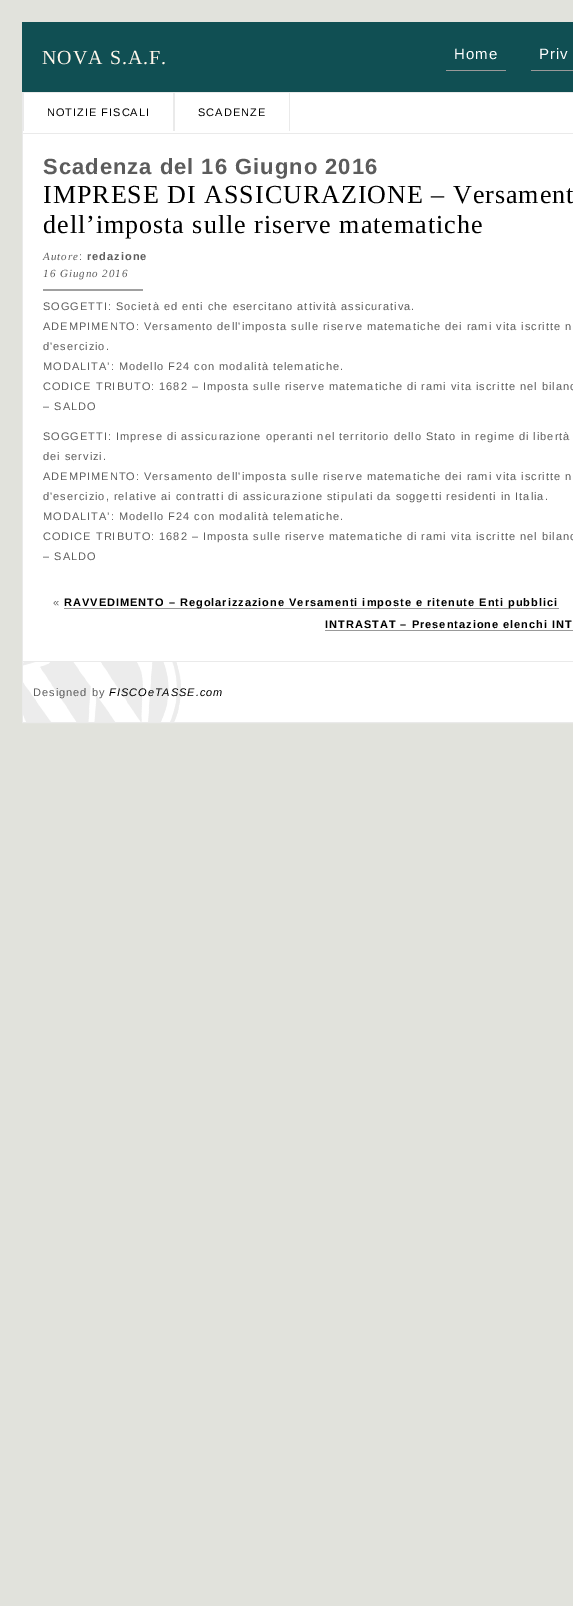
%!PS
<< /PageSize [573 1606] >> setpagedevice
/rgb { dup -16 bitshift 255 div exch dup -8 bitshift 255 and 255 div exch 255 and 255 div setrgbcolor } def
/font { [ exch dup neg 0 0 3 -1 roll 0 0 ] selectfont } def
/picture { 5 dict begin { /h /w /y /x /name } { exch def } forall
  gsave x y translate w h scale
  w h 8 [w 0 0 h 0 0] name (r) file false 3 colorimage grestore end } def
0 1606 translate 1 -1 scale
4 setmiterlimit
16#E1E2DC rgb
0 0 573 1606 rectfill
16#104F53 rgb
22 22 551 70 rectfill
/LiberationSerif-Regular 20 font
16#FFF7EB rgb
42 64 moveto 1 0 (NOVA S.A.F.) ashow
/LiberationSans-Regular 15 font
16#FFFFFF rgb
454 59 moveto 1 0 (Home) ashow
16#999999 rgb
446 70 60 1 rectfill
16#FFFFFF rgb
539 59 moveto 1 0 (Priv) ashow
16#999999 rgb
531 70 42 1 rectfill
16#EAEAEA rgb
22.5 92.5 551 630 rectstroke
16#FFFFFF rgb
23 93 550 40 rectfill
16#EAEAEA rgb
23 133 550 1 rectfill
173 93 2 38 rectfill
23 93 1 38 rectfill
/LiberationSans-Regular 11 font
16#000000 rgb
47 116 moveto 1 0 (NOTIZIE FISCALI) ashow
16#EAEAEA rgb
289 93 1 38 rectfill
16#000000 rgb
198 116 moveto 1 0 (SCADENZE) ashow
16#FFFFFF rgb
23 134 550 527 rectfill
/LiberationSans-Bold 22 font
16#5C5C5C rgb
43 174 moveto 1 0 (Scadenza del 16 Giugno 2016) ashow
/LiberationSerif-Regular 26 font
16#000000 rgb
43 203 moveto 1 0 (IMPRESE DI ASSICURAZIONE – Versament) ashow
43 233 moveto 1 0 (dell’imposta sulle riserve matematiche) ashow
/LiberationSerif-Italic 11 font
16#5C5C5C rgb
43 260 moveto 1 0 (Autore) ashow
/LiberationSans-Regular 11 font
79 260 moveto 1 0 (:) ashow
/LiberationSans-Bold 11 font
87 260 moveto 1 0 (redazione) ashow
/LiberationSerif-Italic 11 font
43 277 moveto 1 0 (16 Giugno 2016) ashow
16#A0A0A0 rgb
43 289 100 2 rectfill
/LiberationSans-Regular 11 font
16#5C5C5C rgb
43 310 moveto 1 0 (SOGGETTI: Società ed enti che esercitano attività assicurativa.) ashow
43 330 moveto 1 0 (ADEMPIMENTO: Versamento dell'imposta sulle riserve matematiche dei rami vita iscritte n) ashow
43 350 moveto 1 0 (d'esercizio.) ashow
43 370 moveto 1 0 (MODALITA’: Modello F24 con modalità telematiche.) ashow
43 390 moveto 1 0 (CODICE TRIBUTO: 1682 – Imposta sulle riserve matematiche di rami vita iscritte nel bilanc) ashow
43 410 moveto 1 0 (– SALDO) ashow
43 440 moveto 1 0 (SOGGETTI: Imprese di assicurazione operanti nel territorio dello Stato in regime di libertà) ashow
43 460 moveto 1 0 (dei servizi.) ashow
43 480 moveto 1 0 (ADEMPIMENTO: Versamento dell'imposta sulle riserve matematiche dei rami vita iscritte n) ashow
43 500 moveto 1 0 (d'esercizio, relative ai contratti di assicurazione stipulati da soggetti residenti in Italia.) ashow
43 520 moveto 1 0 (MODALITA’: Modello F24 con modalità telematiche.) ashow
43 540 moveto 1 0 (CODICE TRIBUTO: 1682 – Imposta sulle riserve matematiche di rami vita iscritte nel bilanc) ashow
43 560 moveto 1 0 (– SALDO) ashow
53 606 moveto 1 0 («) ashow
16#999999 rgb
64 608 495 1 rectfill
/LiberationSans-Bold 11 font
16#000000 rgb
64 606 moveto 1 0 (RAVVEDIMENTO – Regolarizzazione Versamenti imposte e ritenute Enti pubblici) ashow
325 628 moveto 1 0 (INTRASTAT – Presentazione elenchi INT) ashow
16#999999 rgb
325 630 248 1 rectfill
16#FFFFFF rgb
181 662 392 60 rectfill
(pic1.raw) 23 662 158 60 picture
16#EAEAEA rgb
23 661 550 1 rectfill
/LiberationSans-Regular 11 font
16#5C5C5C rgb
33 696 moveto 1 0 (Designed by) ashow
/LiberationSans-Italic 11 font
16#000000 rgb
109 696 moveto 1 0 (FISCOeTASSE.com) ashow
showpage
